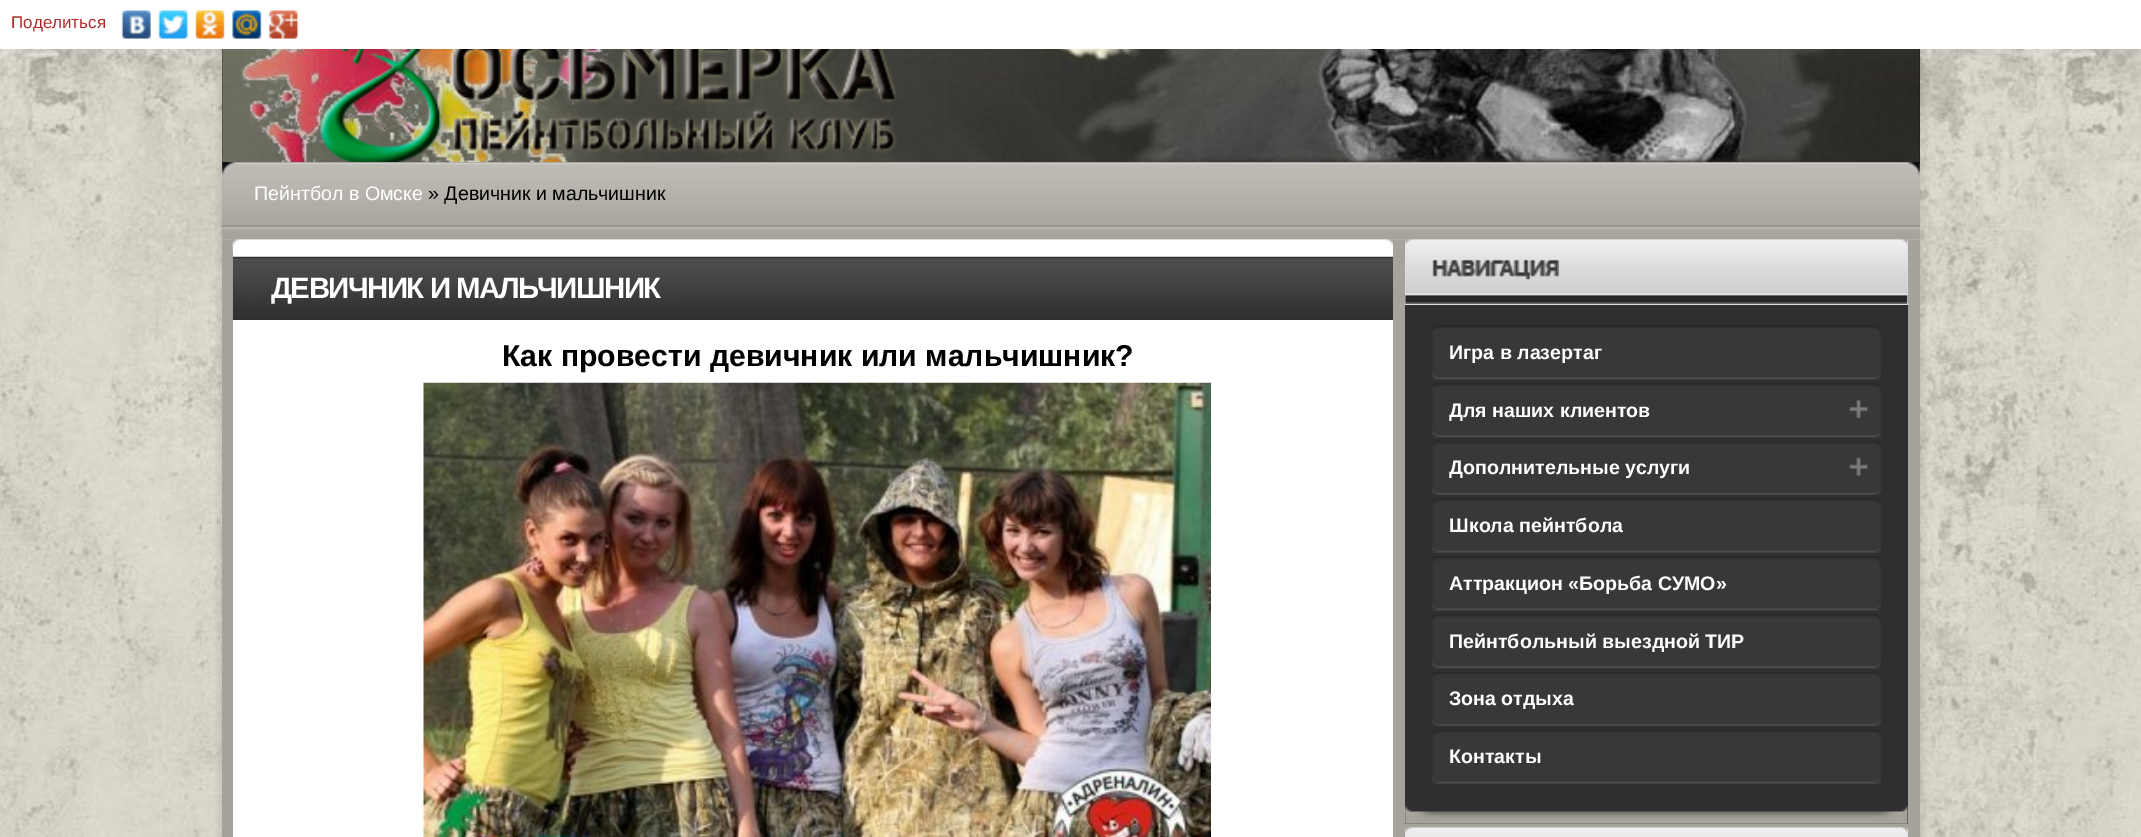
%!PS
<< /PageSize [2141 837] >> setpagedevice
/rgb { dup -16 bitshift 255 div exch dup -8 bitshift 255 and 255 div exch 255 and 255 div setrgbcolor } def
/font { [ exch dup neg 0 0 3 -1 roll 0 0 ] selectfont } def
/text { moveto show } def
/picture { 5 dict begin { /h /w /y /x /name } { exch def } forall
  gsave x y translate w h scale
  w h 8 [w 0 0 h 0 0] name (r) file false 3 colorimage grestore end } def
0 837 translate 1 -1 scale
4 setmiterlimit
/s1 { /LiberationSans-Regular 17 font 16#B42828 rgb } def
/s2 { /LiberationSans-Regular 19.6 font 16#FFFFFF rgb } def
/s3 { /LiberationSans-Regular 19.6 font 16#000000 rgb } def
/s4 { /LiberationSans-Bold 30.2 font 16#000000 rgb } def
/s5 { /LiberationSans-Bold 19.6 font 16#FFFFFF rgb } def
16#FFFFFF rgb
0 0 2141 837 rectfill
s1
(Поделиться) 11 28 text
(pic1.raw) 121 10 30 29 picture
(pic2.raw) 158 10 30 29 picture
(pic3.raw) 195 10 30 29 picture
(pic4.raw) 232 10 30 29 picture
(pic5.raw) 269 10 30 29 picture
(pic6.raw) 0 49 2141 788 picture
(pic7.raw) 215 49 1712 788 picture
16#0F0F12 rgb
222 49 1698 114 rectfill
(pic8.raw) 222 49 1698 114 picture
(pic9.raw) 240 49 657 114 picture
16#B1AEA8 rgb
222 163 1698 77 rectfill
(pic10.raw) 222 162 1698 77 picture
s2
(Пейнтбол в Омске) 254 200 text
s3
(» Девичник и мальчишник) 428 200 text
16#A6A39C rgb
222 240 1698 597 rectfill
16#FFFFFF rgb
233 249 1160 588 rectfill
(pic11.raw) 232 239 1161 11 picture
(pic12.raw) 232 256 1161 64 picture
/LiberationSans-Bold 29.4 font
271 298 moveto -1.5 0 (ДЕВИЧНИК И МАЛЬЧИШНИК) ashow
s4
(Как провести девичник или мальчишник?) 502 366 text
(pic13.raw) 423 382 788 455 picture
16#2F2F2F rgb
1405 305 503 519 rectfill
(pic14.raw) 1405 805 503 19 picture
16#DDDDDD rgb
1405 240 503 65 rectfill
(pic15.raw) 1405 239 503 65 picture
(pic16.raw) 1432 259 128 21 picture
16#383838 rgb
1432 379 449 1 rectfill
(pic17.raw) 1432 331 449 49 picture
(pic18.raw) 1432 325 449 6 picture
s5
(Игра в лазертаг) 1449 359 text
16#383838 rgb
1432 437 449 1 rectfill
(pic19.raw) 1431 383 450 54 picture
(pic20.raw) 1432 383 449 6 picture
s5
(Для наших клиентов) 1449 417 text
(pic21.raw) 1849 400 19 19 picture
(pic22.raw) 1431 440 450 55 picture
(pic23.raw) 1432 440 449 6 picture
(Дополнительные услуги) 1449 474 text
(pic24.raw) 1849 457 19 19 picture
16#383838 rgb
1432 552 449 1 rectfill
(pic25.raw) 1432 498 449 55 picture
(pic26.raw) 1432 498 449 6 picture
s5
(Школа пейнтбола) 1449 532 text
16#383838 rgb
1432 610 449 1 rectfill
(pic17.raw) 1432 562 449 49 picture
(pic18.raw) 1432 556 449 6 picture
s5
(Аттракцион «Борьба СУМО») 1449 590 text
16#383838 rgb
1432 668 449 1 rectfill
(pic19.raw) 1431 614 450 54 picture
(pic20.raw) 1432 614 449 6 picture
s5
(Пейнтбольный выездной ТИР) 1449 648 text
(pic22.raw) 1431 671 450 55 picture
(pic23.raw) 1432 671 449 6 picture
(Зона отдыха) 1449 705 text
16#383838 rgb
1432 783 449 1 rectfill
(pic25.raw) 1432 729 449 55 picture
(pic26.raw) 1432 729 449 6 picture
s5
(Контакты) 1449 763 text
16#DDDDDD rgb
1405 828 503 9 rectfill
(pic27.raw) 1405 827 503 10 picture
showpage
